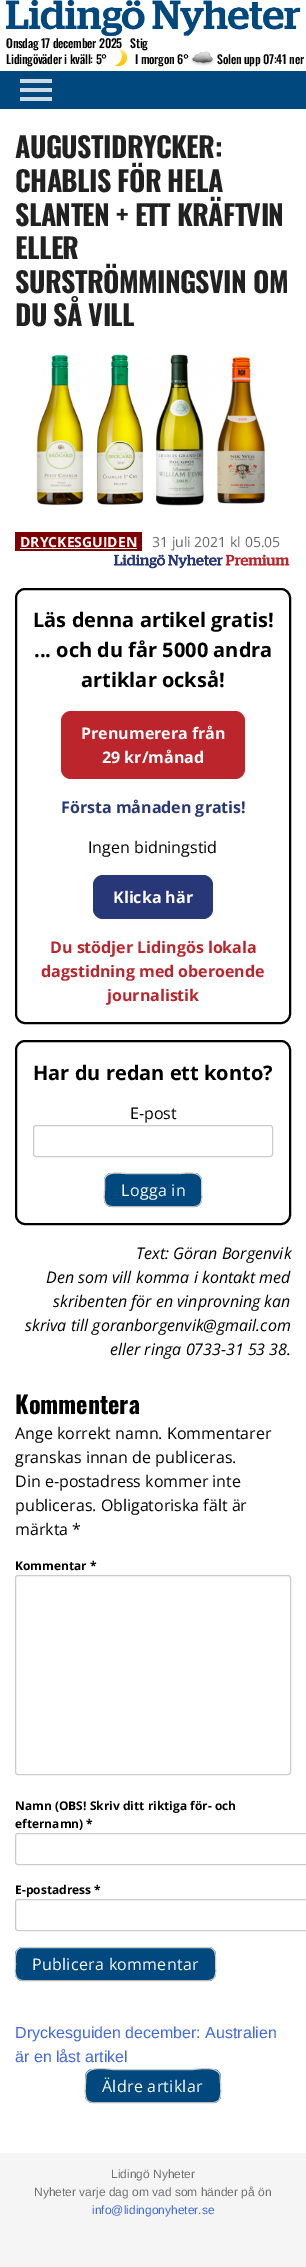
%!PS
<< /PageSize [306 2267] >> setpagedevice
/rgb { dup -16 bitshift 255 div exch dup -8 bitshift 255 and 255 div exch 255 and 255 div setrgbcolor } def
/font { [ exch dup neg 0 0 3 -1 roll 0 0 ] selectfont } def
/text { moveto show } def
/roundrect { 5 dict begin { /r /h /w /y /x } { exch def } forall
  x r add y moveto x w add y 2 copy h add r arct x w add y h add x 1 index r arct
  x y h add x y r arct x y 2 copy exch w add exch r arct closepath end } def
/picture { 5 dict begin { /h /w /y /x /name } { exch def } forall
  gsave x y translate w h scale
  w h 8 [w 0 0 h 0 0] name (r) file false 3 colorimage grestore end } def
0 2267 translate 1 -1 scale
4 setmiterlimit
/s1 { /OpenSans-Bold 14 font 16#FFFFFF rgb } def
/s2 { /OpenSans-Regular 14 font 16#696969 rgb } def
/s3 { /OpenSans-Bold 20 font 16#000000 rgb } def
/s4 { /OpenSans-Bold 16 font 16#FFFFFF rgb } def
/s5 { /OpenSans-Bold 16 font 16#283777 rgb } def
/s6 { /OpenSans-Regular 16 font 16#000000 rgb } def
/s7 { /OpenSans-Bold 16 font 16#BC252B rgb } def
/s8 { /OpenSans-Italic 16 font 16#000000 rgb } def
/s9 { /Oswald-Bold 24 font 16#000000 rgb } def
/s10 { /OpenSans-Bold 12 font 16#000000 rgb } def
/s11 { /LiberationSans-Regular 16 font 16#4169E1 rgb } def
/s12 { /LiberationSans-Regular 12 font 16#737272 rgb } def
/s13 { /LiberationSans-Regular 12 font 16#4169E1 rgb } def
16#FFFFFF rgb
0 0 306 2267 rectfill
(pic1.raw) 5 0 296 36 picture
/Oswald-Medium 12 font
16#000000 rgb
6 48 moveto -0.25 0 (Onsdag 17 december 2025   Stig) ashow
6 64 moveto -0.25 0 (Lidingöväder i kväll: 5°) ashow
(pic2.raw) 115 48 12 19 picture
135 64 moveto -0.25 0 (I morgon 6°) ashow
(pic3.raw) 190 51 24 15 picture
217 64 moveto -0.25 0 (Solen upp 07:41 ner) ashow
16#01487E rgb
0 71 306 38 rectfill
16#CCDAE5 rgb
20 79 32 4 rectfill
20 88 32 4 rectfill
20 97 32 4 rectfill
/Oswald-Bold 28 font
16#212121 rgb
15 158 moveto -0.6 0 (AUGUSTIDRYCKER:) ashow
15 192 moveto -0.6 0 (CHABLIS FÖR HELA) ashow
15 226 moveto -0.6 0 (SLANTEN + ETT KRÄFTVIN) ashow
15 259 moveto -0.6 0 (ELLER) ashow
15 293 moveto -0.6 0 (SURSTRÖMMINGSVIN OM) ashow
15 326 moveto -0.6 0 (DU SÅ VILL) ashow
(pic4.raw) 36 354 229 152 picture
16#800000 rgb
15 532 127 19 rectfill
s1
(DRYCKESGUIDEN) 20 547 text
20 548 117 1 rectfill
s2
(31 juli 2021 kl 05.05) 152 547 text
(pic5.raw) 113 554 177 15 picture
16#000000 rgb
2 setlinewidth
16 589 274 434 9 roundrect stroke
s3
(Läs denna artikel gratis!) 33 627 text
(... och du får 5000 andra) 34 657 text
(artiklar också!) 81 687 text
16#BC252B rgb
61 711 184 68 10 roundrect fill
s4
(Prenumerera från) 81 739 text
(29 kr/månad) 102 763 text
s5
(Första månaden gratis!) 61 813 text
s6
(Ingen bidningstid) 88 853 text
16#283777 rgb
93 875 120 44 10 roundrect fill
s4
(Klicka här) 113 903 text
s7
(Du stödjer Lidingös lokala) 50 953 text
(dagstidning med oberoende) 41 977 text
(journalistik) 107 1001 text
16#000000 rgb
16 1041 274 183 9 roundrect stroke
s3
(Har du redan ett konto?) 33 1080 text
s6
(E-post) 130 1119 text
16#CCCCCC rgb
1 setlinewidth
33.5 1125.5 239 31 2.5 roundrect stroke
16#01487E rgb
104 1173 98 34 8 roundrect fill
16#BBBBBB rgb
199.5 1204.5 moveto 198 1205.5 196 1206.5 194 1206.5 curveto 112 1206.5 lineto 110 1206.5 108 1205.5 106.5 1204.5 curveto stroke
16#CCCCCC rgb
106.5 1204.5 moveto 103 1200.5 104.5 1194.5 104.5 1190 curveto 104.5 1179.5 lineto 106.5 1170.5 120.5 1173.5 125.5 1173.5 curveto 180.5 1173.5 lineto 185.5 1173.5 199.5 1170.5 201.5 1179.5 curveto 201.5 1190 lineto 201.5 1194.5 203 1200.5 199.5 1204.5 curveto stroke
16#FFFFFF rgb
121 1196 moveto 0.3 0 (Logga in) ashow
s8
(Text: Göran Borgenvik) 136 1259 text
(Den som vill komma i kontakt med) 46 1283 text
(skribenten för en vinprovning kan) 53 1307 text
(skriva till goranborgenvik@gmail.com) 25 1331 text
(eller ringa 0733-31 53 38.) 110 1355 text
s9
(Kommentera) 15 1414 text
s6
(Ange korrekt namn. Kommentarer) 15 1439 text
(granskas innan de publiceras.) 15 1463 text
(Din e-postadress kommer inte) 15 1487 text
(publiceras. Obligatoriska fält är) 15 1511 text
(märkta *) 15 1535 text
s10
(Kommentar *) 15 1570 text
16#CCCCCC rgb
15.5 1575.5 275 199 2.5 roundrect stroke
s10
(Namn \(OBS! Skriv ditt riktiga för- och) 15 1810 text
(efternamn\) *) 15 1828 text
16#CCCCCC rgb
15.5 1833.5 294 31 2.5 roundrect stroke
s10
(E-postadress *) 15 1894 text
16#CCCCCC rgb
15.5 1899.5 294 31 2.5 roundrect stroke
16#01487E rgb
15 1947 201 34 8 roundrect fill
16#BBBBBB rgb
213.5 1978.5 moveto 212 1979.5 210 1980.5 208 1980.5 curveto 23 1980.5 lineto 21 1980.5 19 1979.5 17.5 1978.5 curveto stroke
16#CCCCCC rgb
17.5 1978.5 moveto 14 1974.5 15.5 1968.5 15.5 1964 curveto 15.5 1958 14 1947.5 23 1947.5 curveto 208 1947.5 lineto 217 1947.5 215.5 1958 215.5 1964 curveto 215.5 1968.5 217 1974.5 213.5 1978.5 curveto stroke
/OpenSans-Regular 16 font
16#FFFFFF rgb
32 1970 moveto 0.3 0 (Publicera kommentar) ashow
s11
(Dryckesguiden december: Australien) 15 2038 text
(är en låst artikel) 15 2062 text
16#01487E rgb
85 2069 136 34 8 roundrect fill
16#BBBBBB rgb
218.5 2100.5 moveto 217 2101.5 215 2102.5 213 2102.5 curveto 93 2102.5 lineto 91 2102.5 89 2101.5 87.5 2100.5 curveto stroke
16#CCCCCC rgb
87.5 2100.5 moveto 84 2096.5 85.5 2087.5 85.5 2083 curveto 86 2075 lineto 89 2065 109.5 2069.5 113 2069.5 curveto 193 2069.5 lineto 196.5 2069.5 217 2065 220 2075 curveto 220.5 2083 lineto 220.5 2087.5 222 2096.5 218.5 2100.5 curveto stroke
/OpenSans-Regular 16 font
16#FFFFFF rgb
102 2092 moveto 0.3 0 (Äldre artiklar) ashow
16#F5F5F5 rgb
0 2153 306 114 rectfill
s12
(Lidingö Nyheter) 111 2178 text
(Nyheter varje dag om vad som händer på ön) 34 2196 text
s13
(info@lidingonyheter.se) 92 2214 text
showpage
